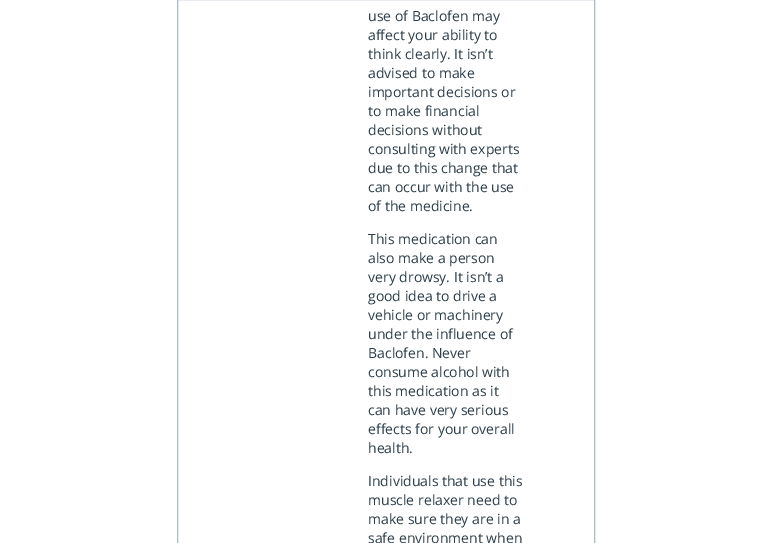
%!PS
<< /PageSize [769 543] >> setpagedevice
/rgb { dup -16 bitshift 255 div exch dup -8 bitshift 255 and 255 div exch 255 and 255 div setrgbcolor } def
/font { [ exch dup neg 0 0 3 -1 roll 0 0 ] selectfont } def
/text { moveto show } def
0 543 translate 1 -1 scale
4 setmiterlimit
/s1 { /OpenSans-Regular 14 font 16#2C3E49 rgb } def
16#FFFFFF rgb
0 0 769 543 rectfill
16#ACB7C7 rgb
177.5 -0.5 417 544 rectstroke
s1
(use of Baclofen may) 368 21 text
(affect your ability to) 368 40 text
(think clearly. It isn’t) 368 59 text
(advised to make) 368 78 text
(important decisions or) 368 97 text
(to make financial) 368 116 text
(decisions without) 368 135 text
(consulting with experts) 368 154 text
(due to this change that) 368 173 text
(can occur with the use) 368 192 text
(of the medicine.) 368 211 text
(This medication can) 368 244 text
(also make a person) 368 263 text
(very drowsy. It isn’t a) 368 282 text
(good idea to drive a) 368 301 text
(vehicle or machinery) 368 320 text
(under the influence of) 368 339 text
(Baclofen. Never) 368 358 text
(consume alcohol with) 368 377 text
(this medication as it) 368 396 text
(can have very serious) 368 415 text
(effects for your overall) 368 434 text
(health.) 368 453 text
(Individuals that use this) 368 486 text
(muscle relaxer need to) 368 505 text
(make sure they are in a) 368 524 text
(safe environment when) 368 543 text
showpage
